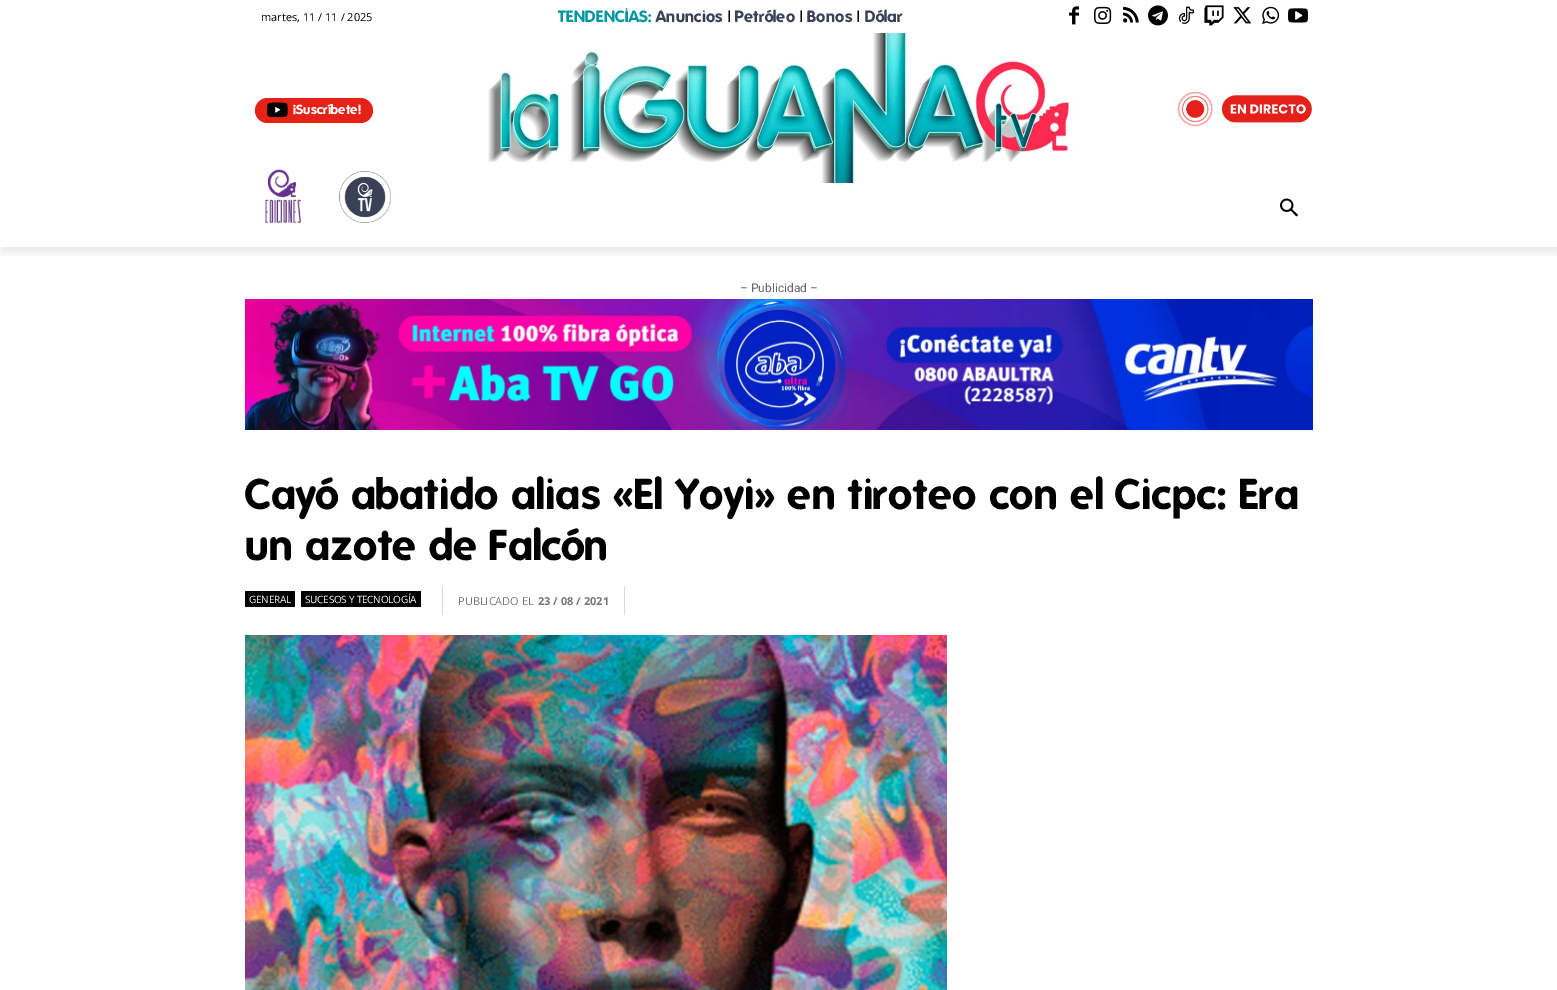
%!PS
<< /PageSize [1557 990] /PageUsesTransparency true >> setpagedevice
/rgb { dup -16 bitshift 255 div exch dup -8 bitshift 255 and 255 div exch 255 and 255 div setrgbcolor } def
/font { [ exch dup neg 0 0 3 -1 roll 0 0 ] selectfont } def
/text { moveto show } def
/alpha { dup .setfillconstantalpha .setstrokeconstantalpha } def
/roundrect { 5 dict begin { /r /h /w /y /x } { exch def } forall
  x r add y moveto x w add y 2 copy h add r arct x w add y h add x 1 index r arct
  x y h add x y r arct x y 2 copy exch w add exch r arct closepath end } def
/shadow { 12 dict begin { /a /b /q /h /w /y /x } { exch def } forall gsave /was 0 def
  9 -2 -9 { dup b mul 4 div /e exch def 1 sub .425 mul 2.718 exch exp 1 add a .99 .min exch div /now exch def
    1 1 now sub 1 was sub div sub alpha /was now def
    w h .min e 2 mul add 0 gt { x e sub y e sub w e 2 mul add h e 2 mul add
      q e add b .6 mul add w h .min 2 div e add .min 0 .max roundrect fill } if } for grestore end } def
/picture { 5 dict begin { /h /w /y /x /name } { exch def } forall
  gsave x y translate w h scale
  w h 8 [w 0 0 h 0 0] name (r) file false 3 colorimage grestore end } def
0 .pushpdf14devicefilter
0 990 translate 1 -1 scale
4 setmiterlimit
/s1 { /OpenSans-Regular 11 font 16#000000 rgb } def
/s2 { /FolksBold-Bold 16 font 16#0096A1 rgb } def
/s3 { /FolksBold-Bold 16 font 16#394157 rgb } def
/s4 { /FolksBold-Bold 16 font 16#000000 rgb } def
/s5 { /FolksBold-Bold 13 font 16#FFFFFF rgb } def
/s6 { /Roboto-Regular 12 font 16#666666 rgb } def
/s7 { /FolksBold-Bold 42 font 16#000000 rgb } def
/s8 { /OpenSans-Regular 11 font 16#767676 rgb } def
/s9 { /OpenSans-Bold 11 font 16#767676 rgb } def
16#FFFFFF rgb
0 0 1557 990 rectfill
s1
(martes, 11 / 11 / 2025) 261 21 text
s2
(TENDENCIAS:) 558 22 text
s3
(Anuncios) 656 22 text
s4
(|) 728 22 text
s3
(Petróleo) 735 22 text
s4
(|) 800 22 text
s3
(Bonos) 807 22 text
s4
(|) 857 22 text
s3
(Dólar) 865 22 text
(pic1.raw) 1069 6 10 19 picture
(pic2.raw) 1094 6 18 18 picture
(pic3.raw) 1123 6 16 17 picture
(pic4.raw) 1148 5 20 21 picture
(pic5.raw) 1178 6 16 18 picture
(pic6.raw) 1204 5 20 21 picture
(pic7.raw) 1233 7 19 17 picture
(pic8.raw) 1262 6 18 18 picture
(pic9.raw) 1288 8 20 15 picture
16#E62117 rgb
255 98 118 25 12.5 roundrect fill
(pic10.raw) 267 102 21 16 picture
s5
(¡Suscríbete!) 293 114 text
(pic11.raw) 488 33 587 150 picture
(pic12.raw) 1177 91 135 36 picture
(pic13.raw) 265 169 36 55 picture
gsave
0 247 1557 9 rectclip
16#000000 rgb
1 191 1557 62 0 4 0.08 shadow
grestore
(pic14.raw) 338 171 53 52 picture
(pic15.raw) 1280 198 18 19 picture
s6
(– Publicidad –) 740 292 text
(pic16.raw) 245 299 1068 131 picture
s7
(Cayó abatido alias «El Yoyi» en tiroteo con el Cicpc: Era) 245 509 text
(un azote de Falcón) 245 560 text
16#D8D8D8 rgb
442 586 1 29 rectfill
16#000000 rgb
245 591 50 16 rectfill
/OpenSans-Regular 10 font
16#FFFFFF rgb
249 603 moveto -0.25 0 (GENERAL) ashow
16#000000 rgb
301 591 120 16 rectfill
16#FFFFFF rgb
305 603 moveto -0.25 0 (SUCESOS Y TECNOLOGÍA) ashow
16#D8D8D8 rgb
624 586 1 29 rectfill
s8
(PUBLICADO EL) 458 605 text
s9
(23 / 08 / 2021) 538 605 text
(pic17.raw) 245 635 702 355 picture
.poppdf14devicefilter showpage
